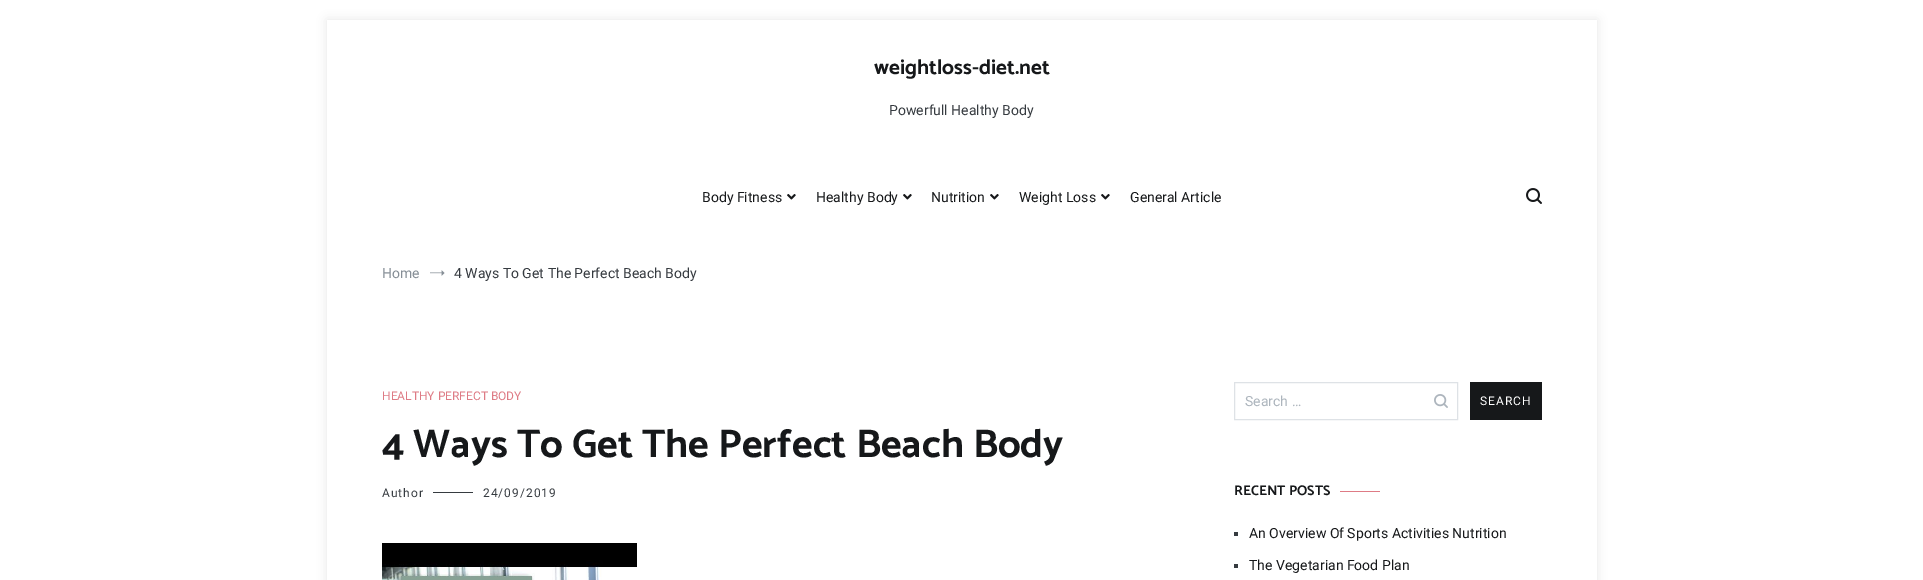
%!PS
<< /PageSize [1923 580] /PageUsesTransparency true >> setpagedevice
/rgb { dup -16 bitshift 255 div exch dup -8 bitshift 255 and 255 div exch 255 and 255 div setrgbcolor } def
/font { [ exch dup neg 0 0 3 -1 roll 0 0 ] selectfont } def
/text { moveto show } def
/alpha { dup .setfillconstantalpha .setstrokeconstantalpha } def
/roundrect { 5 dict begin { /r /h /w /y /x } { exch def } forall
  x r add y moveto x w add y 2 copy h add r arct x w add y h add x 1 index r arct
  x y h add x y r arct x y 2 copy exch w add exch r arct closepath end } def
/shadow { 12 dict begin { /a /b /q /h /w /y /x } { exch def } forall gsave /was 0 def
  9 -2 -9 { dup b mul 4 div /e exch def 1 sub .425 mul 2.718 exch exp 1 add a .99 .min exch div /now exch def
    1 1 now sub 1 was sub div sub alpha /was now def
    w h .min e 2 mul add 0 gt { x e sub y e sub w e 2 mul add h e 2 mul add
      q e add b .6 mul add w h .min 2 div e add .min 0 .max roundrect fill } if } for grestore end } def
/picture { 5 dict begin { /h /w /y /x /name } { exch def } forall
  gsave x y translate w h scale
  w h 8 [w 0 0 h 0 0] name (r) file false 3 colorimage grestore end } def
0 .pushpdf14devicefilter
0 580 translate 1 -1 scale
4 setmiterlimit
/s1 { /Catamaran-Bold 21 font 16#16181A rgb } def
/s2 { /Roboto-Regular 14 font 16#363B40 rgb } def
/s3 { /Roboto-Regular 14 font 16#16181A rgb } def
/s4 { /Roboto-Regular 14 font 16#868E96 rgb } def
/s5 { /Roboto-Regular 12 font 16#DE7B85 rgb } def
/s6 { /Catamaran-Bold 40 font 16#16181A rgb } def
/s7 { /Roboto-Regular 14 font 16#ADB5BD rgb } def
/s8 { /Catamaran-Bold 14 font 16#16181A rgb } def
16#FFFFFF rgb
0 0 1923 580 rectfill
gsave
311 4 moveto 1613 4 lineto 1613 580 lineto 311 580 lineto closepath 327 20 moveto 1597 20 lineto 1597 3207 lineto 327 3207 lineto closepath eoclip newpath
16#000000 rgb
327 20 1270 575 0 5 0.1 shadow
grestore
s1
(weightloss-diet.net) 874 74 text
s2
(Powerfull Healthy Body) 889 115 text
s3
(Body Fitness) 702 202 text
(pic1.raw) 787 194 9 6 picture
(Healthy Body) 816 202 text
(pic1.raw) 903 194 9 6 picture
(Nutrition) 931 202 text
(pic1.raw) 990 194 9 6 picture
(Weight Loss) 1019 202 text
(pic1.raw) 1101 194 9 6 picture
(General Article) 1130 202 text
(pic2.raw) 1526 188 16 16 picture
s4
(Home) 382 278 text
(pic3.raw) 430 270 15 6 picture
s2
(4 Ways To Get The Perfect Beach Body) 454 278 text
s5
(HEALTHY PERFECT BODY) 382 400 text
s6
(4 Ways To Get The Perfect Beach Body) 382 457 text
/Roboto-Regular 12 font
16#363B40 rgb
382 497 moveto 1 0 (Author) ashow
433 492 40 1 rectfill
483 497 moveto 1 0 (24/09/2019) ashow
(pic4.raw) 382 543 255 37 picture
16#DEE2E6 rgb
1234.5 382.5 223 37 rectstroke
s7
(Search …) 1245 406 text
(pic5.raw) 1434 394 14 14 picture
16#16181A rgb
1470 382 72 38 rectfill
/Roboto-Regular 12 font
16#FFFFFF rgb
1480 405 moveto 1 0 (SEARCH) ashow
s8
(RECENT POSTS) 1234 495 text
16#DE7B85 rgb
1340 491 40 1 rectfill
16#363B40 rgb
1234 532 4 4 rectfill
s3
(An Overview Of Sports Activities Nutrition) 1249 538 text
16#363B40 rgb
1234 564 4 4 rectfill
s3
(The Vegetarian Food Plan) 1249 570 text
.poppdf14devicefilter showpage
